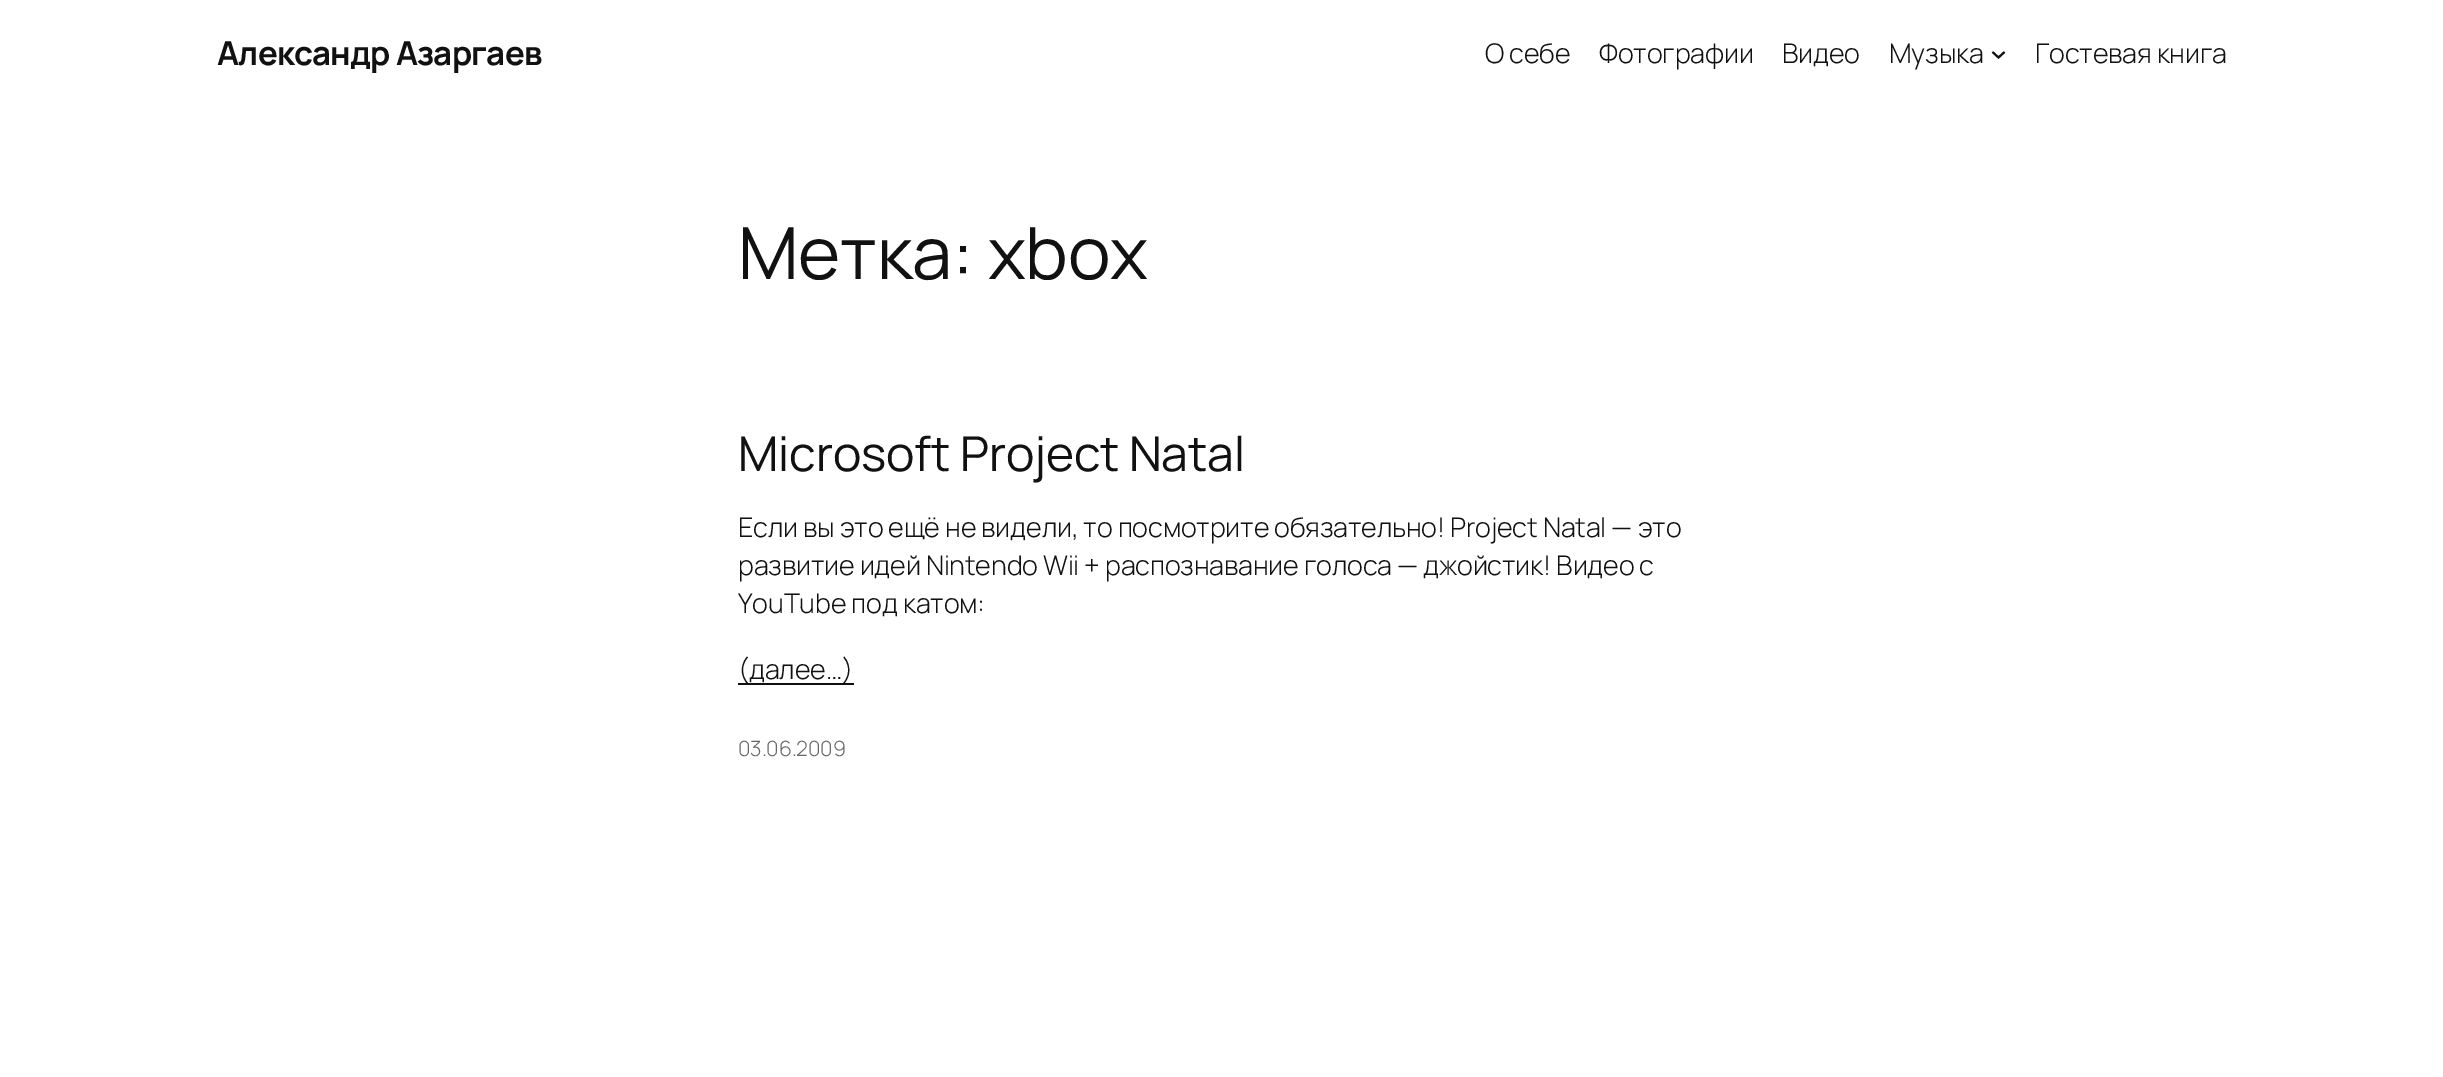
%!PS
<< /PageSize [2443 1077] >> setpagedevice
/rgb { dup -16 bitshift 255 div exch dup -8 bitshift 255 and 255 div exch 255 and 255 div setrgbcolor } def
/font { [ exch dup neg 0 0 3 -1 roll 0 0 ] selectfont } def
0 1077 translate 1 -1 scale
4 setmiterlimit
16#FFFFFF rgb
0 0 2443 1077 rectfill
/Manrope-Bold 33 font
16#111111 rgb
217 65 moveto -0.75 0 (Александр Азаргаев) ashow
/Manrope-Light 27 font
1485 63 moveto -0.15 0 (О себе) ashow
1599 63 moveto -0.15 0 (Фотографии) ashow
1782 63 moveto -0.15 0 (Видео) ashow
1889 63 moveto -0.15 0 (Музыка) ashow
2 setlinewidth
1992.5 52 moveto 1998.5 57.5 lineto 2004.5 52 lineto stroke
2035 63 moveto -0.15 0 (Гостевая книга) ashow
/Manrope-Regular 72 font
738 279 moveto -0.15 0 (Метка: xbox) ashow
/Manrope-Regular 48 font
738 471 moveto -0.15 0 (Microsoft Project Natal) ashow
/Manrope-Light 27 font
738 537 moveto -0.15 0 (Если вы это ещё не видели, то посмотрите обязательно! Project Natal — это) ashow
738 575 moveto -0.15 0 (развитие идей Nintendo Wii + распознавание голоса — джойстик! Видео с) ashow
738 613 moveto -0.15 0 (YouTube под катом:) ashow
738 683 116 2 rectfill
738 679 moveto -0.15 0 (\(далее…\)) ashow
/Manrope-Light 21 font
16#686868 rgb
738 756 moveto -0.15 0 (03.06.2009) ashow
showpage
